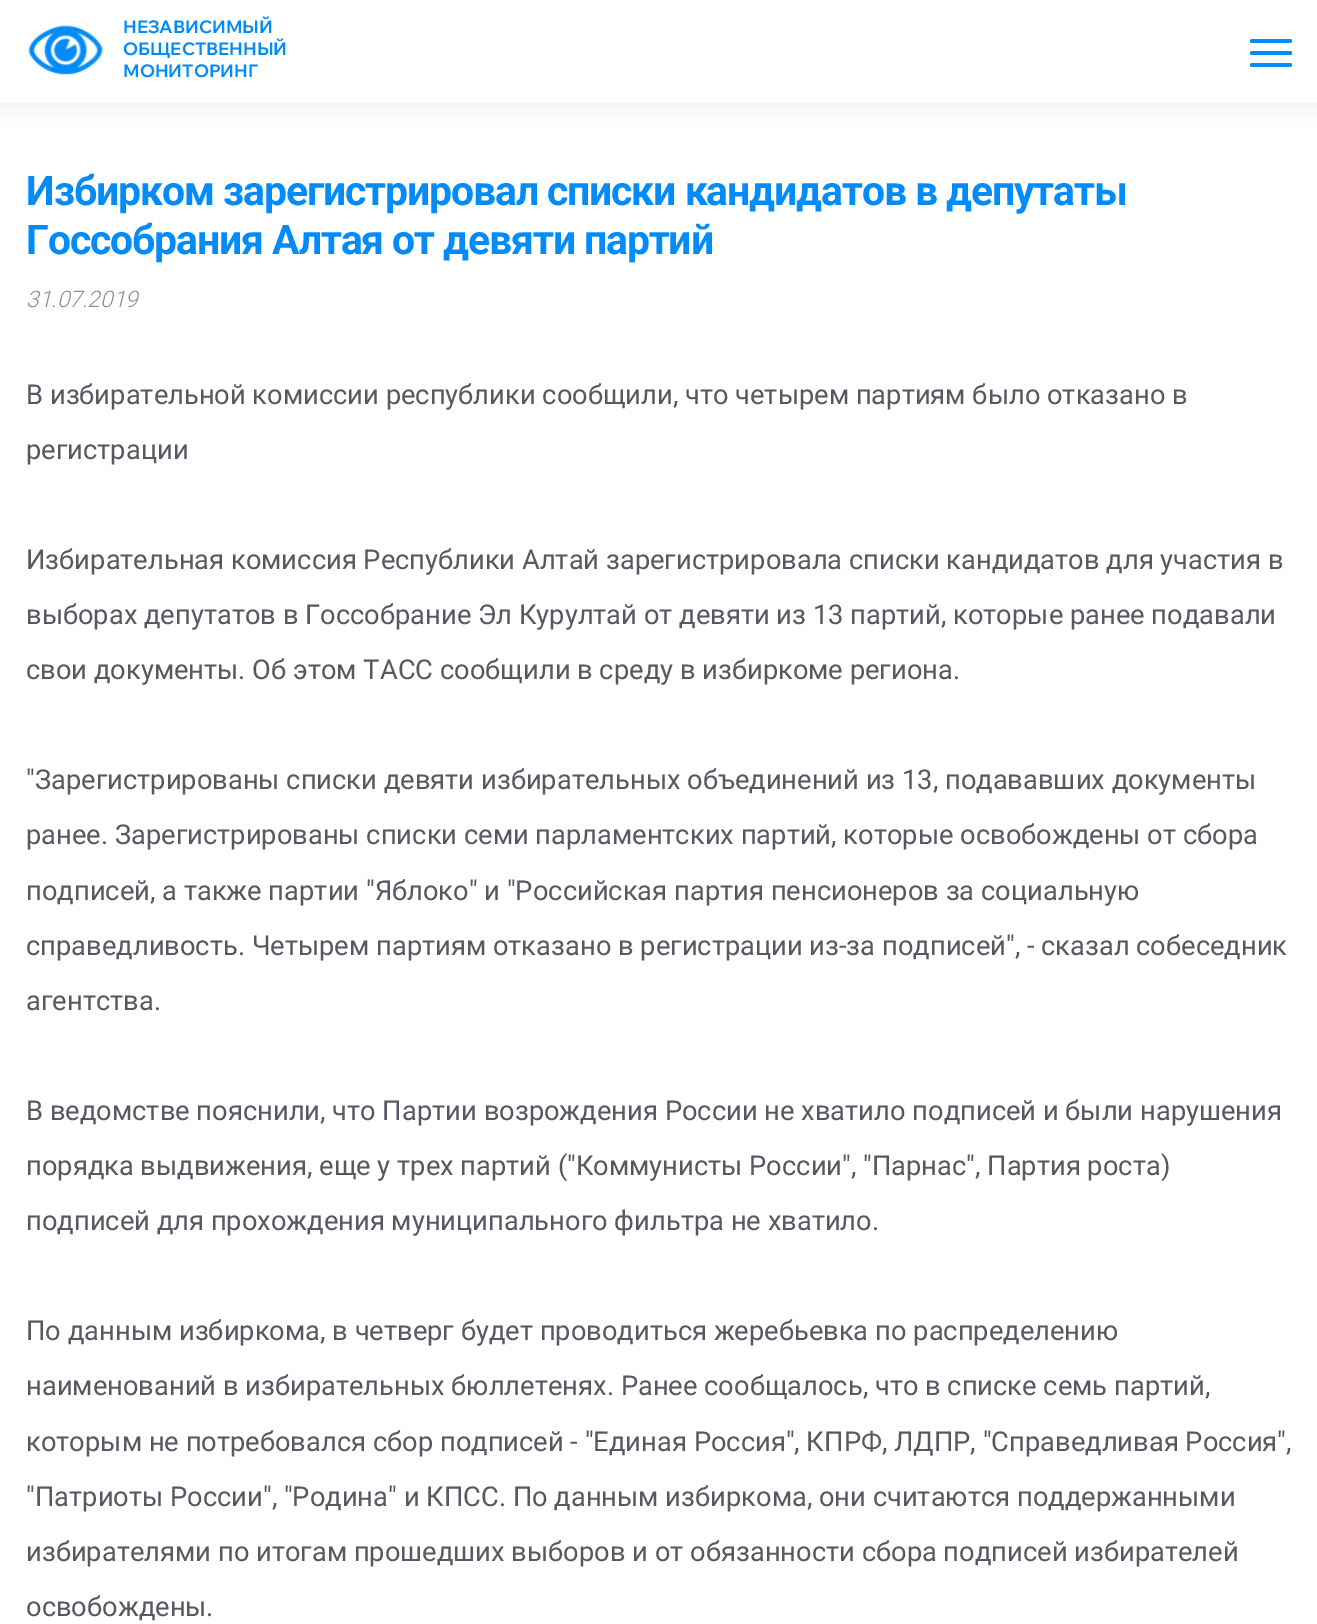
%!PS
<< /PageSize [1317 1624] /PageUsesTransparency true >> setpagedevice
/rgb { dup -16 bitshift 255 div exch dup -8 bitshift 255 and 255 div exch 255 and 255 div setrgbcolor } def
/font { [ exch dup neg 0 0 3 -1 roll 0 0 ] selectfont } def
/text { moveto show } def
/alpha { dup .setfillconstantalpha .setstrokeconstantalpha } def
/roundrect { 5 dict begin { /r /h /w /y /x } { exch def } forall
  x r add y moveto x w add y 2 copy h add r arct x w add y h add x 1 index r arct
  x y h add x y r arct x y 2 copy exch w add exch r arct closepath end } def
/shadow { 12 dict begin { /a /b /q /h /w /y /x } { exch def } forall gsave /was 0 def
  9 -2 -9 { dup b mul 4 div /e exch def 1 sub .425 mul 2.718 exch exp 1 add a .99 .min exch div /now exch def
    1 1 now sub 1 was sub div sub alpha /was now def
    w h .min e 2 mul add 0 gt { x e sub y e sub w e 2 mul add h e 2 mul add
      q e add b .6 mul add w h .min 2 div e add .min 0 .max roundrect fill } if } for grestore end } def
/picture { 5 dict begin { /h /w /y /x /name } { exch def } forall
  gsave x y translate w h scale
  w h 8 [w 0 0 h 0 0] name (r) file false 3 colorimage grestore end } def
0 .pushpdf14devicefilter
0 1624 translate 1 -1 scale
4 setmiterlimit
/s1 { /WixMadeforDisplay-Bold 17.5 font 16#038CF8 rgb } def
/s2 { /Roboto-LightItalic 22.75 font 16#868E96 rgb } def
/s3 { /Roboto-Regular 27.3 font 16#575962 rgb } def
16#FFFFFF rgb
0 0 1317 1624 rectfill
16#514D5C rgb
-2 0 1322 105 0 13 0.1 shadow
16#FFFFFF rgb
0 0 1317 102 rectfill
(pic1.raw) 28 25 76 50 picture
s1
(НЕЗАВИСИМЫЙ) 123 33 text
(ОБЩЕСТВЕННЫЙ) 123 55 text
(МОНИТОРИНГ) 123 77 text
1250 51 42 4 2 roundrect fill
1250 39 42 4 2 roundrect fill
1250 63 42 4 2 roundrect fill
/Roboto-Bold 40.95 font
26 205 moveto -1.1 0 (Избирком зарегистрировал списки кандидатов в депутаты) ashow
26 254 moveto -1.1 0 (Госсобрания Алтая от девяти партий) ashow
s2
(31.07.2019) 26 307 text
s3
(В избирательной комиссии республики сообщили, что четырем партиям было отказано в) 26 404 text
(регистрации) 26 459 text
(Избирательная комиссия Республики Алтай зарегистрировала списки кандидатов для участия в) 26 569 text
(выборах депутатов в Госсобрание Эл Курултай от девяти из 13 партий, которые ранее подавали) 26 624 text
(свои документы. Об этом ТАСС сообщили в среду в избиркоме региона.) 26 679 text
("Зарегистрированы списки девяти избирательных объединений из 13, подававших документы) 26 789 text
(ранее. Зарегистрированы списки семи парламентских партий, которые освобождены от сбора) 26 844 text
(подписей, а также партии "Яблоко" и "Российская партия пенсионеров за социальную) 26 900 text
(справедливость. Четырем партиям отказано в регистрации из-за подписей", - сказал собеседник) 26 955 text
(агентства.) 26 1010 text
(В ведомстве пояснили, что Партии возрождения России не хватило подписей и были нарушения) 26 1120 text
(порядка выдвижения, еще у трех партий \("Коммунисты России", "Парнас", Партия роста\)) 26 1175 text
(подписей для прохождения муниципального фильтра не хватило.) 26 1230 text
(По данным избиркома, в четверг будет проводиться жеребьевка по распределению) 26 1340 text
(наименований в избирательных бюллетенях. Ранее сообщалось, что в списке семь партий,) 26 1395 text
(которым не потребовался сбор подписей - "Единая Россия", КПРФ, ЛДПР, "Справедливая Россия",) 26 1451 text
("Патриоты России", "Родина" и КПСС. По данным избиркома, они считаются поддержанными) 26 1506 text
(избирателями по итогам прошедших выборов и от обязанности сбора подписей избирателей) 26 1561 text
(освобождены.) 26 1616 text
.poppdf14devicefilter showpage
